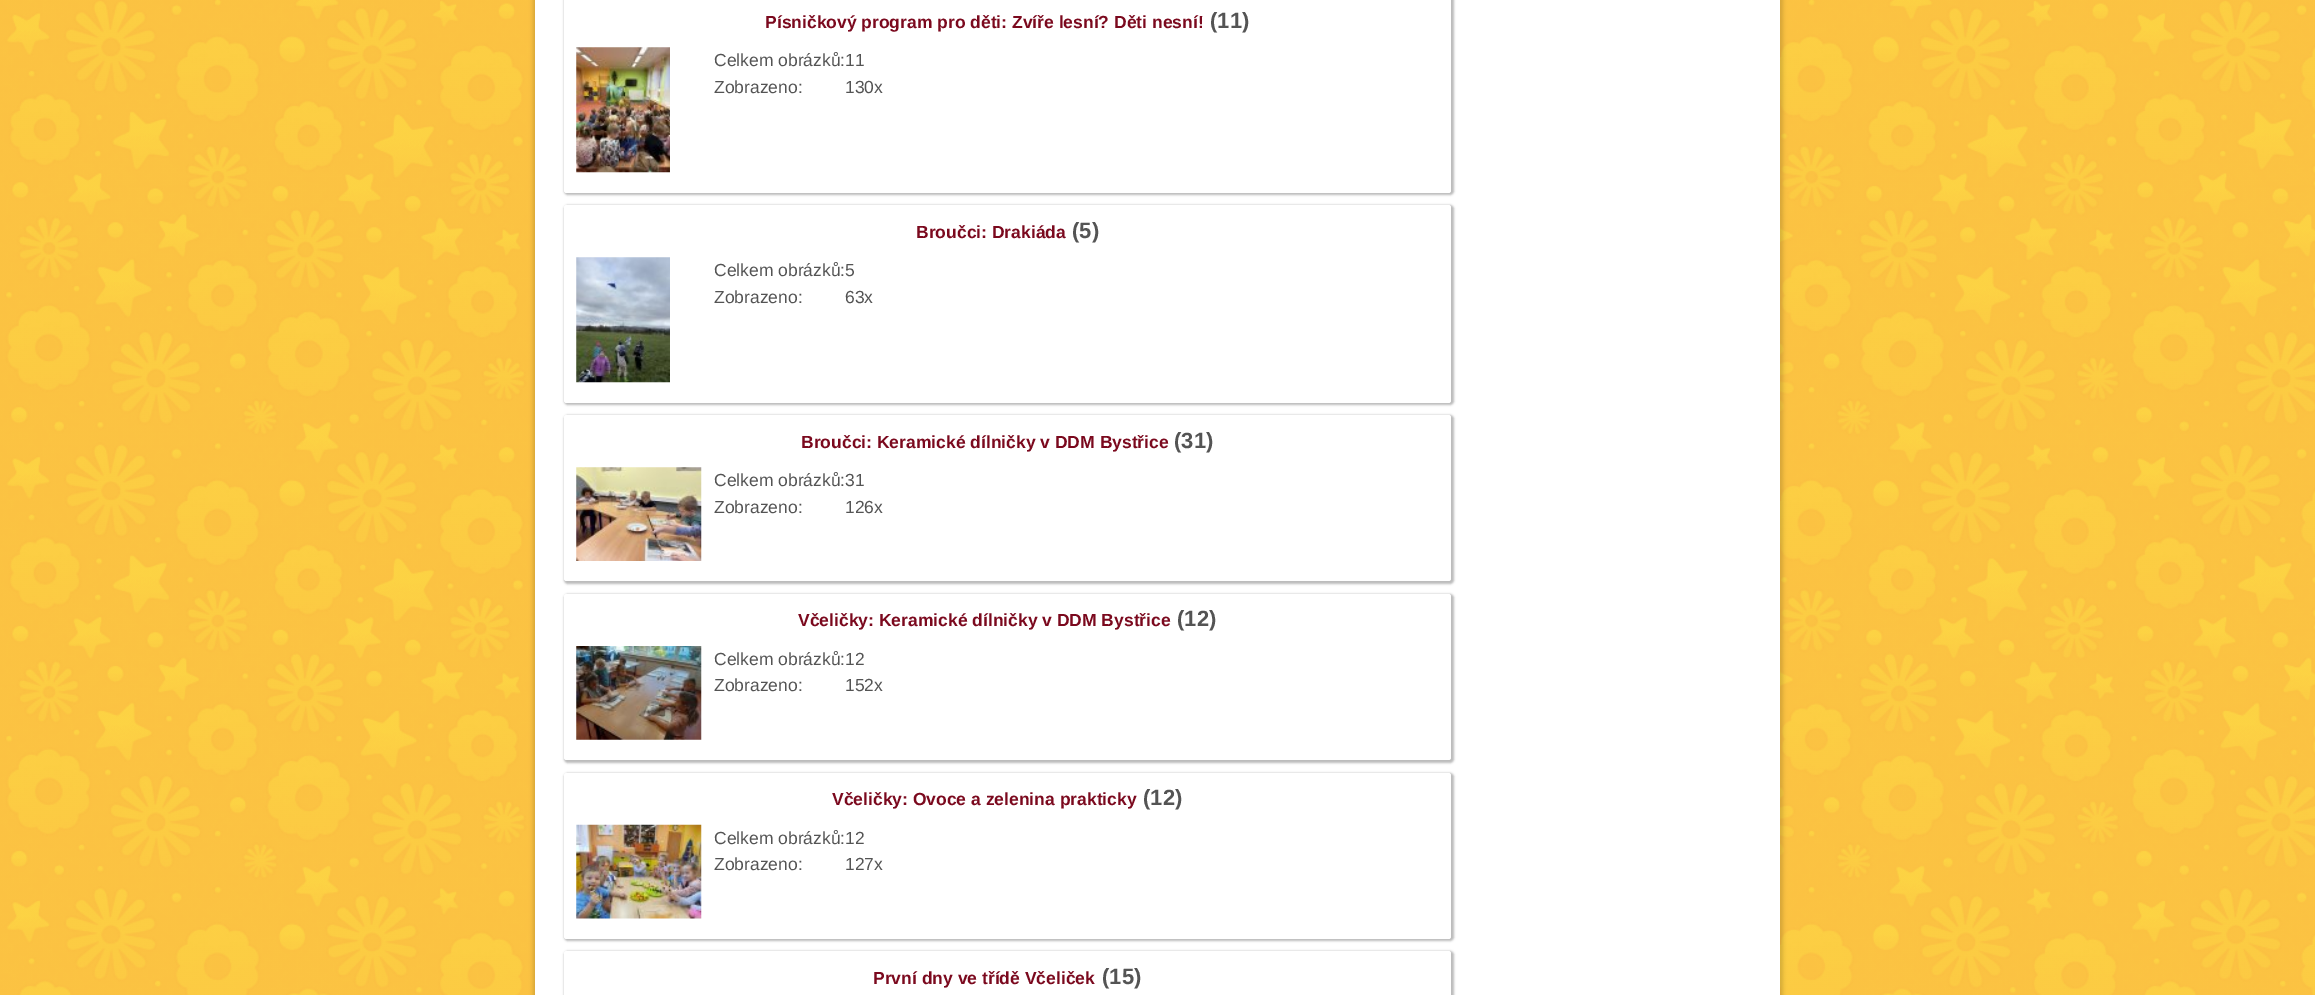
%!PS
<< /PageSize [2315 995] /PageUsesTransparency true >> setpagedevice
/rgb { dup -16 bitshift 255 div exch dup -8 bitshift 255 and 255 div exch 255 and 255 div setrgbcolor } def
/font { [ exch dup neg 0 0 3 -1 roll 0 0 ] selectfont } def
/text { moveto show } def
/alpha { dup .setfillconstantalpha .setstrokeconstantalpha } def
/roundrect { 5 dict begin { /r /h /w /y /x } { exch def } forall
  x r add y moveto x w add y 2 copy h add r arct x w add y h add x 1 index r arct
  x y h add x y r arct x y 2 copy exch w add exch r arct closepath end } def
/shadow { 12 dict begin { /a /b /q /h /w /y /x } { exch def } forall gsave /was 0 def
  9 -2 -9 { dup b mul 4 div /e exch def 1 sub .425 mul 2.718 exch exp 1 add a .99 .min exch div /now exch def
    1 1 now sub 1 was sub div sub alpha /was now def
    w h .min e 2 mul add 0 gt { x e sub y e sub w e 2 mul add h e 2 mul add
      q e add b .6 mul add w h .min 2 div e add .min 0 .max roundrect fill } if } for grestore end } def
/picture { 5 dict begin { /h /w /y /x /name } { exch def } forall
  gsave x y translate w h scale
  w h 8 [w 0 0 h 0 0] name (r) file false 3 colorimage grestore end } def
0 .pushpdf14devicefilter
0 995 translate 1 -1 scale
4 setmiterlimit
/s1 { /LiberationSans-Bold 17.5 font 16#7B091E rgb } def
/s2 { /LiberationSans-Bold 22 font 16#545454 rgb } def
/s3 { /LiberationSans-Regular 17.5 font 16#545454 rgb } def
16#FFFFFF rgb
0 0 2315 995 rectfill
(pic1.raw) 0 0 2315 995 picture
16#000000 rgb
533 -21 1250 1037 15 2 0.15 shadow
16#FFFFFF rgb
535 0 1245 995 rectfill
16#787878 rgb
564 -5 890 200 4 1 0.5 shadow
16#FFFFFF rgb
564 -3 887 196 2.5 roundrect fill
s1
(Písničkový program pro děti: Zvíře lesní? Děti nesní!) 765 28 text
s2
(\(11\)) 1210 28 text
(pic2.raw) 576 47 94 126 picture
s3
(Celkem obrázků:11) 714 66 text
(Zobrazeno:) 714 93 text
(130x) 845 93 text
16#787878 rgb
564 205 890 200 4 1 0.5 shadow
16#FFFFFF rgb
564 205 887 198 2.5 roundrect fill
s1
(Broučci: Drakiáda) 916 238 text
s2
(\(5\)) 1072 238 text
(pic3.raw) 576 257 94 126 picture
s3
(Celkem obrázků:5) 714 276 text
(Zobrazeno:) 714 303 text
(63x) 845 303 text
16#787878 rgb
564 415 890 169 4 1 0.5 shadow
16#FFFFFF rgb
564 415 887 166 2.5 roundrect fill
s1
(Broučci: Keramické dílničky v DDM Bystřice) 801 448 text
s2
(\(31\)) 1174 448 text
(pic4.raw) 576 467 126 94 picture
s3
(Celkem obrázků:31) 714 486 text
(Zobrazeno:) 714 513 text
(126x) 845 513 text
16#787878 rgb
564 594 890 169 4 1 0.5 shadow
16#FFFFFF rgb
564 594 887 166 2.5 roundrect fill
s1
(Včeličky: Keramické dílničky v DDM Bystřice) 798 626 text
s2
(\(12\)) 1177 626 text
(pic5.raw) 576 646 126 94 picture
s3
(Celkem obrázků:12) 714 665 text
(Zobrazeno:) 714 691 text
(152x) 845 691 text
16#787878 rgb
564 773 890 168 4 1 0.5 shadow
16#FFFFFF rgb
564 773 887 166 2.5 roundrect fill
s1
(Včeličky: Ovoce a zelenina prakticky) 832 805 text
s2
(\(12\)) 1143 805 text
(pic6.raw) 576 824 126 95 picture
s3
(Celkem obrázků:12) 714 844 text
(Zobrazeno:) 714 870 text
(127x) 845 870 text
16#787878 rgb
564 951 890 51 4 1 0.5 shadow
16#FFFFFF rgb
564 951 887 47 2.5 roundrect fill
s1
(První dny ve třídě Včeliček) 873 984 text
s2
(\(15\)) 1102 984 text
.poppdf14devicefilter showpage
